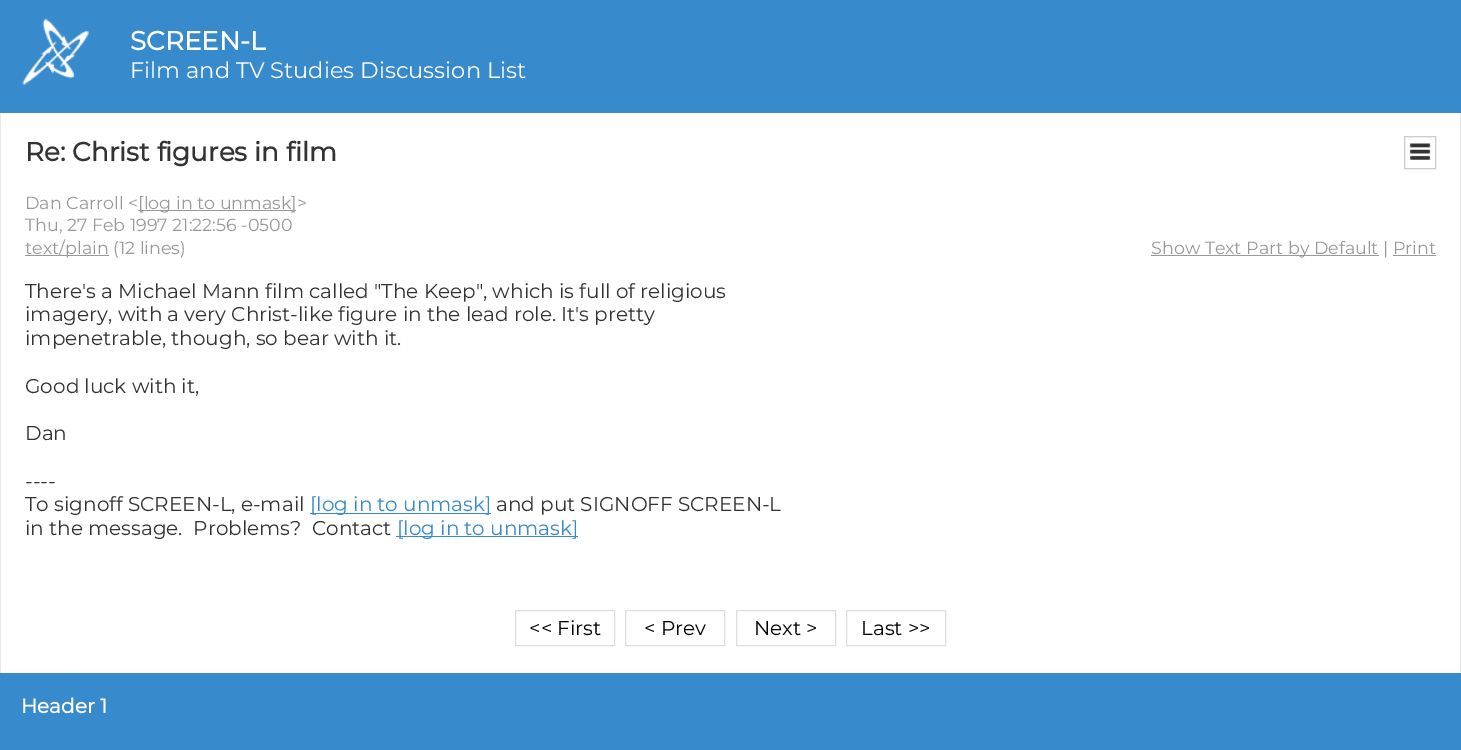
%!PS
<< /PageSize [1461 750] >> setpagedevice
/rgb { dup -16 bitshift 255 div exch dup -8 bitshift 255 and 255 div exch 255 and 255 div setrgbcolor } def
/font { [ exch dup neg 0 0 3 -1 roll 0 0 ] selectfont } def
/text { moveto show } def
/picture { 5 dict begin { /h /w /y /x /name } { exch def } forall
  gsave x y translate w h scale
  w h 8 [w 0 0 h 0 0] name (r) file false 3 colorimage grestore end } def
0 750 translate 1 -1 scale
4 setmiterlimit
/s1 { /Montserrat-Bold 26.25 font 16#FFFFFF rgb } def
/s2 { /Montserrat-Thin 22.5 font 16#FFFFFF rgb } def
/s3 { /Montserrat-Bold 26.25 font 16#333333 rgb } def
/s4 { /Montserrat-Thin 17.5 font 16#999999 rgb } def
/s5 { /Montserrat-Thin 20 font 16#333333 rgb } def
/s6 { /Montserrat-Thin 20 font 16#378ACC rgb } def
/s7 { /Montserrat-Thin 20 font 16#000000 rgb } def
/s8 { /Montserrat-Bold 20 font 16#FFFFFF rgb } def
16#378ACC rgb
0 0 1461 750 rectfill
(pic1.raw) 22 18 67 67 picture
s1
(SCREEN-L) 130 50 text
s2
(Film and TV Studies Discussion List) 130 78 text
1 113 1459 560 rectfill
16#EAEAEA rgb
1460 113 1 560 rectfill
0 113 1 560 rectfill
16#CCCCCC rgb
1404.5 136.5 31 32 rectstroke
(pic2.raw) 1409 143 22 17 picture
s3
(Re: Christ figures in film) 25 161 text
s4
(Dan Carroll <) 25 209 text
138 210 158 1 rectfill
([log in to unmask]>) 138 209 text
(Thu, 27 Feb 1997 21:22:56 -0500) 25 231 text
25 255 84 1 rectfill
(text/plain \(12 lines\)) 25 254 text
1151 255 228 1 rectfill
(Show Text Part by Default | Print) 1151 254 text
1393 255 43 1 rectfill
s5
(There's a Michael Mann film called "The Keep", which is full of religious) 25 298 text
(imagery, with a very Christ-like figure in the lead role. It's pretty) 25 321 text
(impenetrable, though, so bear with it.) 25 345 text
(Good luck with it,) 25 393 text
(Dan) 25 440 text
(----) 25 488 text
(To signoff SCREEN-L, e-mail) 25 511 text
16#378ACC rgb
310 513 181 1 rectfill
([log in to unmask]) 310 511 text
s5
(and put SIGNOFF SCREEN-L) 496 511 text
(in the message.  Problems?  Contact) 25 535 text
16#378ACC rgb
396 536 182 1 rectfill
([log in to unmask]) 397 535 text
16#DEDEDE rgb
515.5 610.5 99 35 rectstroke
s7
(<< First) 529 635 text
16#DEDEDE rgb
625.5 610.5 99 35 rectstroke
s7
(< Prev) 644 635 text
16#DEDEDE rgb
736.5 610.5 99 35 rectstroke
s7
(Next >) 754 635 text
16#DEDEDE rgb
846.5 610.5 99 35 rectstroke
s7
(Last >>) 861 635 text
s8
(Header 1) 21 713 text
showpage
